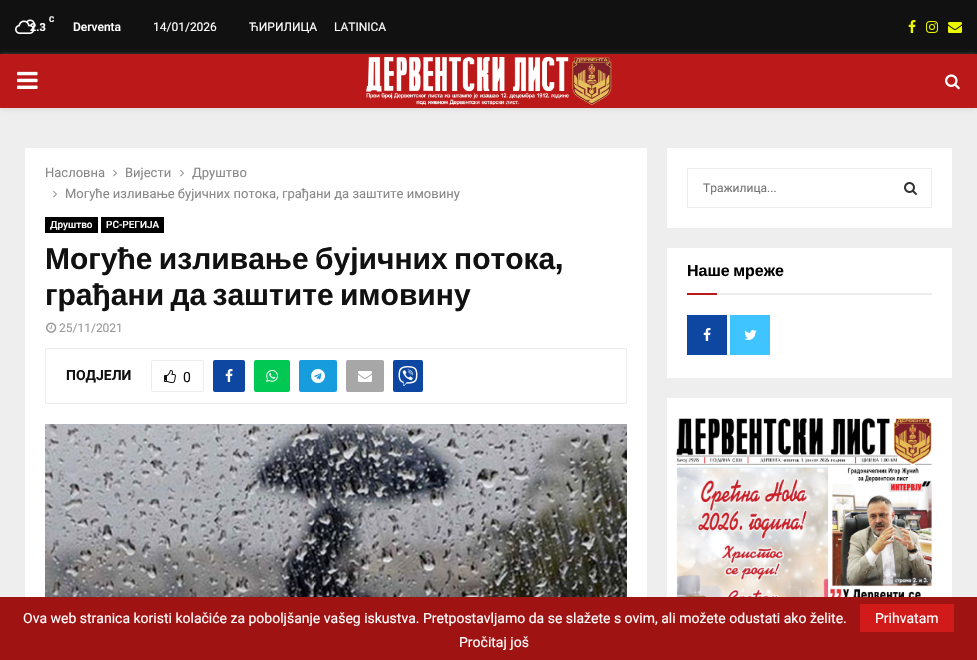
void draw(SkCanvas* canvas) {
	SkPaint fill;
	fill.setAntiAlias(true);
	auto makeFont = [&](const char* family, int weight, float size, bool italic = false) {
		SkFontStyle style(weight, SkFontStyle::kNormal_Width,
			italic ? SkFontStyle::kItalic_Slant : SkFontStyle::kUpright_Slant);
		SkFont result(fontMgr->matchFamilyStyle(family, style), size);
		result.setSubpixel(true);
		return result;
	};
	auto text = [&](const char* s, float x, float y, const SkFont& font) {
		canvas->drawString(s, x, y, font, fill);
	};
	auto spacedText = [&](const char* s, float x, float y, const SkFont& font, const SkPaint& ink, float letter, float word) {
		std::vector<SkGlyphID> glyphs(font.countText(s, strlen(s), SkTextEncoding::kUTF8));
		std::vector<float> xs(glyphs.size());
		font.textToGlyphs(s, strlen(s), SkTextEncoding::kUTF8, glyphs);
		font.getXPos(glyphs, xs, x);
		float extra = 0;
		for (size_t i = 0; i < glyphs.size(); i++) {
			xs[i] += extra;
			extra += letter + word * (glyphs[i] == font.unicharToGlyph(' '));
		}
		canvas->drawTextBlob(SkTextBlob::MakeFromPosHGlyphs(glyphs, xs, y, font), 0, 0, ink);
	};
	auto box = [&](float l, float t, float r, float b) {
		canvas->drawRect(SkRect::MakeLTRB(l, t, r, b), fill);
	};
	auto roundBox = [&](float l, float t, float r, float b, float radius) {
		canvas->drawRoundRect(SkRect::MakeLTRB(l, t, r, b), radius, radius, fill);
	};
	auto picture = [&](const char* path, float l, float t, float r, float b) {
		auto image = SkImages::DeferredFromEncodedData(SkData::MakeFromFileName(path));
		canvas->drawImageRect(image, SkRect::MakeLTRB(l, t, r, b), SkSamplingOptions());
	};
	canvas->clear(0xFFEEEEEE);
	fill.setColor(0xFF111111);
	box(0, 0, 977, 54);
	picture("image0.png", 15, 19, 35, 34);
	picture("image1.png", 908, 20, 916, 33);
	picture("image2.png", 926, 21, 938, 33);
	picture("image3.png", 948, 22, 962, 33);
	fill.setColor(0x75BEBEBE);
	fill.setMaskFilter(SkMaskFilter::MakeBlur(kNormal_SkBlurStyle, 2.5f));
	canvas->drawRect(SkRect::MakeLTRB(0, 55, 977, 109), fill);
	fill.setMaskFilter(nullptr);
	fill.setColor(0xFFBB1919);
	box(0, 54, 977, 108);
	picture("image4.png", 17, 71, 38, 89);
	picture("image5.png", 366, 57, 612, 105);
	picture("image6.png", 945, 74, 960, 90);
	fill.setColor(0xFFFFFFFF);
	box(25, 148, 647, 597);
	picture("image7.png", 113, 169, 117, 177);
	picture("image7.png", 180, 169, 184, 177);
	picture("image7.png", 53, 190, 57, 198);
	fill.setColor(0xFF000000);
	box(45, 217, 98, 233);
	box(101, 217, 164, 233);
	picture("image8.png", 46, 322, 57, 333);
	fill.setStyle(SkPaint::kStroke_Style);
	fill.setStrokeWidth(1);
	fill.setColor(0xFFECECEC);
	canvas->drawRect(SkRect::MakeLTRB(45.5f, 348.5f, 626.5f, 403.5f), fill);
	canvas->drawRoundRect(SkRect::MakeLTRB(151.5f, 360.5f, 203.5f, 391.5f), 1.5f, 1.5f, fill);
	picture("image9.png", 164, 370, 176, 383);
	fill.setStyle(SkPaint::kFill_Style);
	fill.setColor(0xFF0D47A1);
	roundBox(213, 360, 245, 392, 2);
	picture("image10.png", 225, 369, 233, 382);
	fill.setColor(0xFF00C853);
	roundBox(254, 360, 290, 392, 2);
	picture("image11.png", 266, 370, 278, 382);
	fill.setColor(0xFF179CDE);
	roundBox(299, 360, 337, 392, 2);
	picture("image12.png", 311, 369, 325, 383);
	fill.setColor(0xFFA7A7A7);
	roundBox(346, 360, 384, 392, 2);
	picture("image13.png", 358, 371, 372, 382);
	fill.setColor(0xFF0D47A1);
	roundBox(393, 360, 423, 392, 2);
	picture("image14.png", 398, 366, 418, 386);
	picture("image15.png", 45, 424, 627, 597);
	fill.setColor(0xFFFFFFFF);
	box(667, 148, 952, 228);
	fill.setStyle(SkPaint::kStroke_Style);
	fill.setColor(0xFFECECEC);
	canvas->drawRect(SkRect::MakeLTRB(687.5f, 168.5f, 931.5f, 207.5f), fill);
	picture("image16.png", 904, 182, 917, 195);
	fill.setStyle(SkPaint::kFill_Style);
	fill.setColor(0xFFFFFFFF);
	box(667, 248, 952, 378);
	fill.setColor(0xFFECECEC);
	box(717, 293, 932, 295);
	fill.setColor(0xFFBB1919);
	box(687, 293, 717, 295);
	fill.setColor(0xFF0D47A1);
	box(687, 315, 727, 355);
	picture("image10.png", 703, 328, 711, 341);
	fill.setColor(0xFF40C4FF);
	box(730, 315, 770, 355);
	picture("image17.png", 744, 330, 757, 340);
	picture("image18.png", 667, 398, 952, 597);
	fill.setColor(0xFFA01313);
	box(0, 597, 977, 660);
	fill.setColor(0xFFD11B1B);
	box(860, 604, 954, 632);
	auto font1 = makeFont("Roboto", 700, 8);
	fill.setColor(0xFFFFFFFF);
	text("C", 49, 22, font1);
	auto font2 = makeFont("Roboto", 700, 11);
	text("2.3", 30, 31, font2);
	auto font3 = makeFont("Roboto", 500, 12);
	text("Derventa", 73, 31, font3);
	auto font4 = makeFont("Roboto", 400, 12);
	text("14/01/2026", 153, 31, font4);
	text("ЋИРИЛИЦА", 249, 31, font4);
	text("LATINICA", 334, 31, font4);
	auto font5 = makeFont("Roboto", 400, 13);
	fill.setColor(0xFF888888);
	text("Насловна", 45, 177, font5);
	text("Вијести", 125, 177, font5);
	text("Друштво", 192, 177, font5);
	text("Могуће изливање бујичних потока, грађани да заштите имовину", 65, 198, font5);
	auto font6 = makeFont("Roboto", 500, 10);
	fill.setColor(0xFFFFFFFF);
	text("Друштво", 50, 228, font6);
	text("РС-РЕГИЈА", 106, 228, font6);
	auto font7 = makeFont("Liberation Sans", 700, 30);
	fill.setColor(0xFF111111);
	spacedText("Могуће изливање бујичних потока", 45, 269, font7, fill, 0, -2);
	auto font8 = makeFont("Chivo", 700, 30);
	text(",", 555, 269, font8);
	spacedText("грађани да заштите имовину", 45, 305, font7, fill, 0, -2);
	fill.setColor(0xFF999999);
	text("25/11/2021", 59, 332, font4);
	auto font9 = makeFont("Roboto", 700, 14);
	fill.setColor(0xFF111111);
	text("ПОДЈЕЛИ", 66, 380, font9);
	auto font10 = makeFont("Roboto", 400, 14);
	text("0", 183, 382, font10);
	fill.setColor(0xFF757575);
	text("Тражилица...", 703, 192, font4);
	auto font11 = makeFont("Liberation Sans", 700, 16);
	fill.setColor(0xFF000000);
	spacedText("Наше мреже", 687, 276, font11, fill, 0, -1);
	fill.setColor(0xFFFFFFFF);
	text("Ova web stranica koristi kolačiće za poboljšanje vašeg iskustva. Pretpostavljamo da se slažete s ovim, ali možete odustati ako želite.", 23, 623, font10);
	text("Prihvatam", 875, 623, font10);
	text("Pročitaj još", 459, 647, font10);
}
